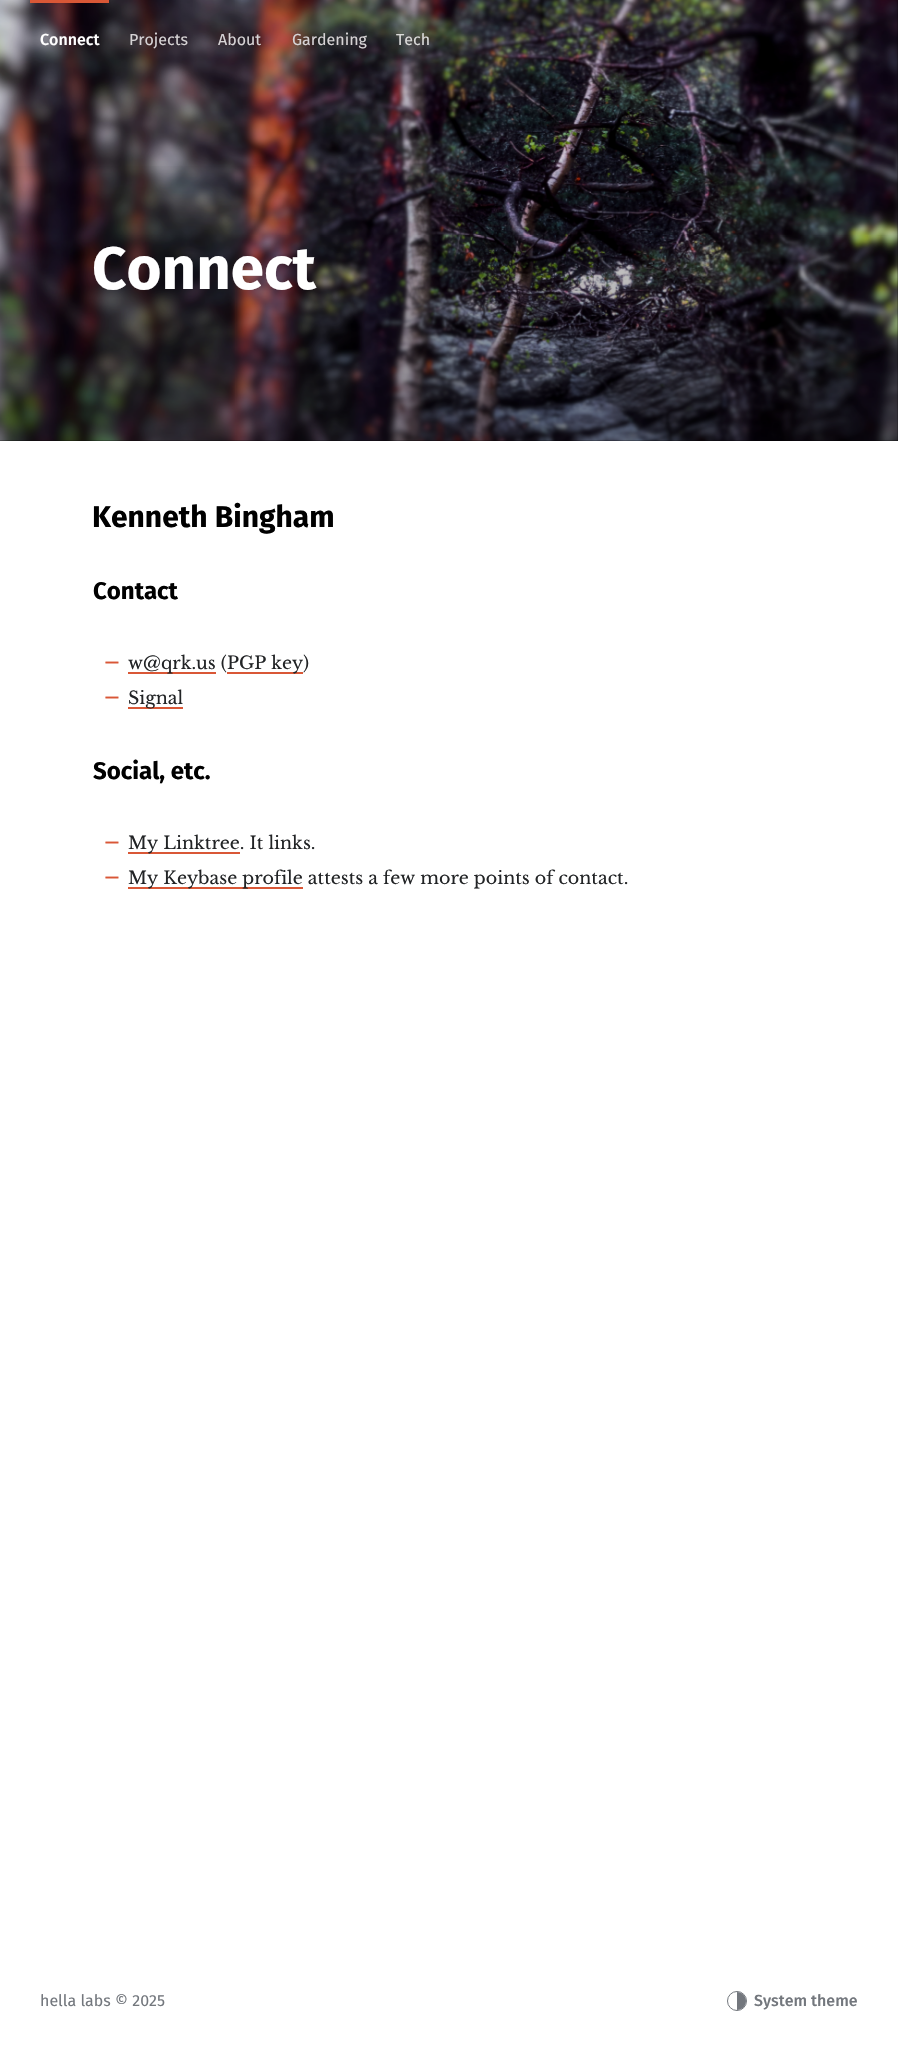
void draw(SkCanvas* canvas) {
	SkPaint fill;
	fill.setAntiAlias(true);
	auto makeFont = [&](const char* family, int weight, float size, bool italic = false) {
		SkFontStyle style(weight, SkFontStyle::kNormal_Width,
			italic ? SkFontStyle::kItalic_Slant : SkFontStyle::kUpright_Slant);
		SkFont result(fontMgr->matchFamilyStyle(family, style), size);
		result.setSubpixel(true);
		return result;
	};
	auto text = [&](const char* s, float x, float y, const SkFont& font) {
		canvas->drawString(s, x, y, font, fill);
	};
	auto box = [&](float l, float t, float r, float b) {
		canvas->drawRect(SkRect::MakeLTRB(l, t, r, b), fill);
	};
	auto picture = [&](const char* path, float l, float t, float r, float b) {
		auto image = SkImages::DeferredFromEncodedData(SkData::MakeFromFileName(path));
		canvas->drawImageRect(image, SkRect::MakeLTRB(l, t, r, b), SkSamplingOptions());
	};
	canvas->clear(0xFFFFFFFF);
	fill.setColor(0xFF000000);
	box(0, 0, 898, 441);
	picture("image0.png", 0, 0, 898, 441);
	fill.setColor(0xFFD95736);
	box(30, 0, 109, 3);
	{
		const SkColor colors[] = {0x00000000, 0x54000000};
		const float stops[] = {0, 1};
		const SkPoint ends[] = {{449, 147}, {449, 441}};
		fill.setShader(SkGradientShader::MakeLinear(ends, colors, stops, 2, SkTileMode::kClamp));
		fill.setAlpha(255);
	}
	box(0, 166, 898, 441);
	fill.setShader(nullptr);
	fill.setColor(0xFFD95736);
	box(128, 672, 216, 674);
	box(227, 672, 303, 674);
	box(128, 707, 183, 709);
	box(128, 852, 240, 854);
	box(128, 887, 303, 889);
	fill.setStyle(SkPaint::kStroke_Style);
	fill.setStrokeWidth(1);
	fill.setColor(0xFF73777D);
	canvas->drawCircle(737, 2001, 9.5f, fill);
	fill.setStyle(SkPaint::kFill_Style);
	canvas->drawPath(SkPathBuilder().moveTo(737, 1992).cubicTo(742, 1992, 746, 1996, 746, 2001).cubicTo(746, 2006, 742, 2010, 737, 2010).close().detach(), fill);
	auto font1 = makeFont("Fira Sans", 500, 16);
	fill.setColor(0xFFFFFFFF);
	text("Connect", 40, 45, font1);
	auto font2 = makeFont("Fira Sans", 400, 16);
	fill.setColor(0xFFD6D3D5);
	text("Projects", 129, 45, font2);
	text("About", 218, 45, font2);
	text("Gardening", 292, 45, font2);
	fill.setColor(0xFFDADAD9);
	text("Tech", 396, 45, font2);
	auto font3 = makeFont("Fira Sans", 700, 60);
	fill.setColor(0xFFFFFFFF);
	text("Connect", 92, 289, font3);
	auto font4 = makeFont("Fira Sans", 700, 30);
	fill.setColor(0xFF000000);
	text("Kenneth Bingham", 92, 527, font4);
	auto font5 = makeFont("Fira Sans", 700, 24);
	text("Contact", 93, 599, font5);
	auto font6 = makeFont("Fira Sans", 500, 17.5f);
	fill.setColor(0xFFD95736);
	text("—", 105, 668, font6);
	auto font7 = makeFont("Libre Baskerville", 400, 17.5f);
	fill.setColor(0xFF222426);
	text("w@qrk.us (", 128, 669, font7);
	text("PGP key)", 227, 669, font7);
	fill.setColor(0xFFD95736);
	text("—", 105, 703, font6);
	fill.setColor(0xFF222426);
	text("Signal", 128, 704, font7);
	fill.setColor(0xFF000000);
	text("Social, etc.", 93, 779, font5);
	fill.setColor(0xFFD95736);
	text("—", 105, 848, font6);
	fill.setColor(0xFF222426);
	text("My Linktree. It links.", 128, 849, font7);
	fill.setColor(0xFFD95736);
	text("—", 105, 883, font6);
	fill.setColor(0xFF222426);
	text("My Keybase profile attests a few more points of contact.", 128, 884, font7);
	fill.setColor(0xFF73777D);
	text("hella labs © 2025", 40, 2006, font2);
	text("System theme", 754, 2006, font1);
}
